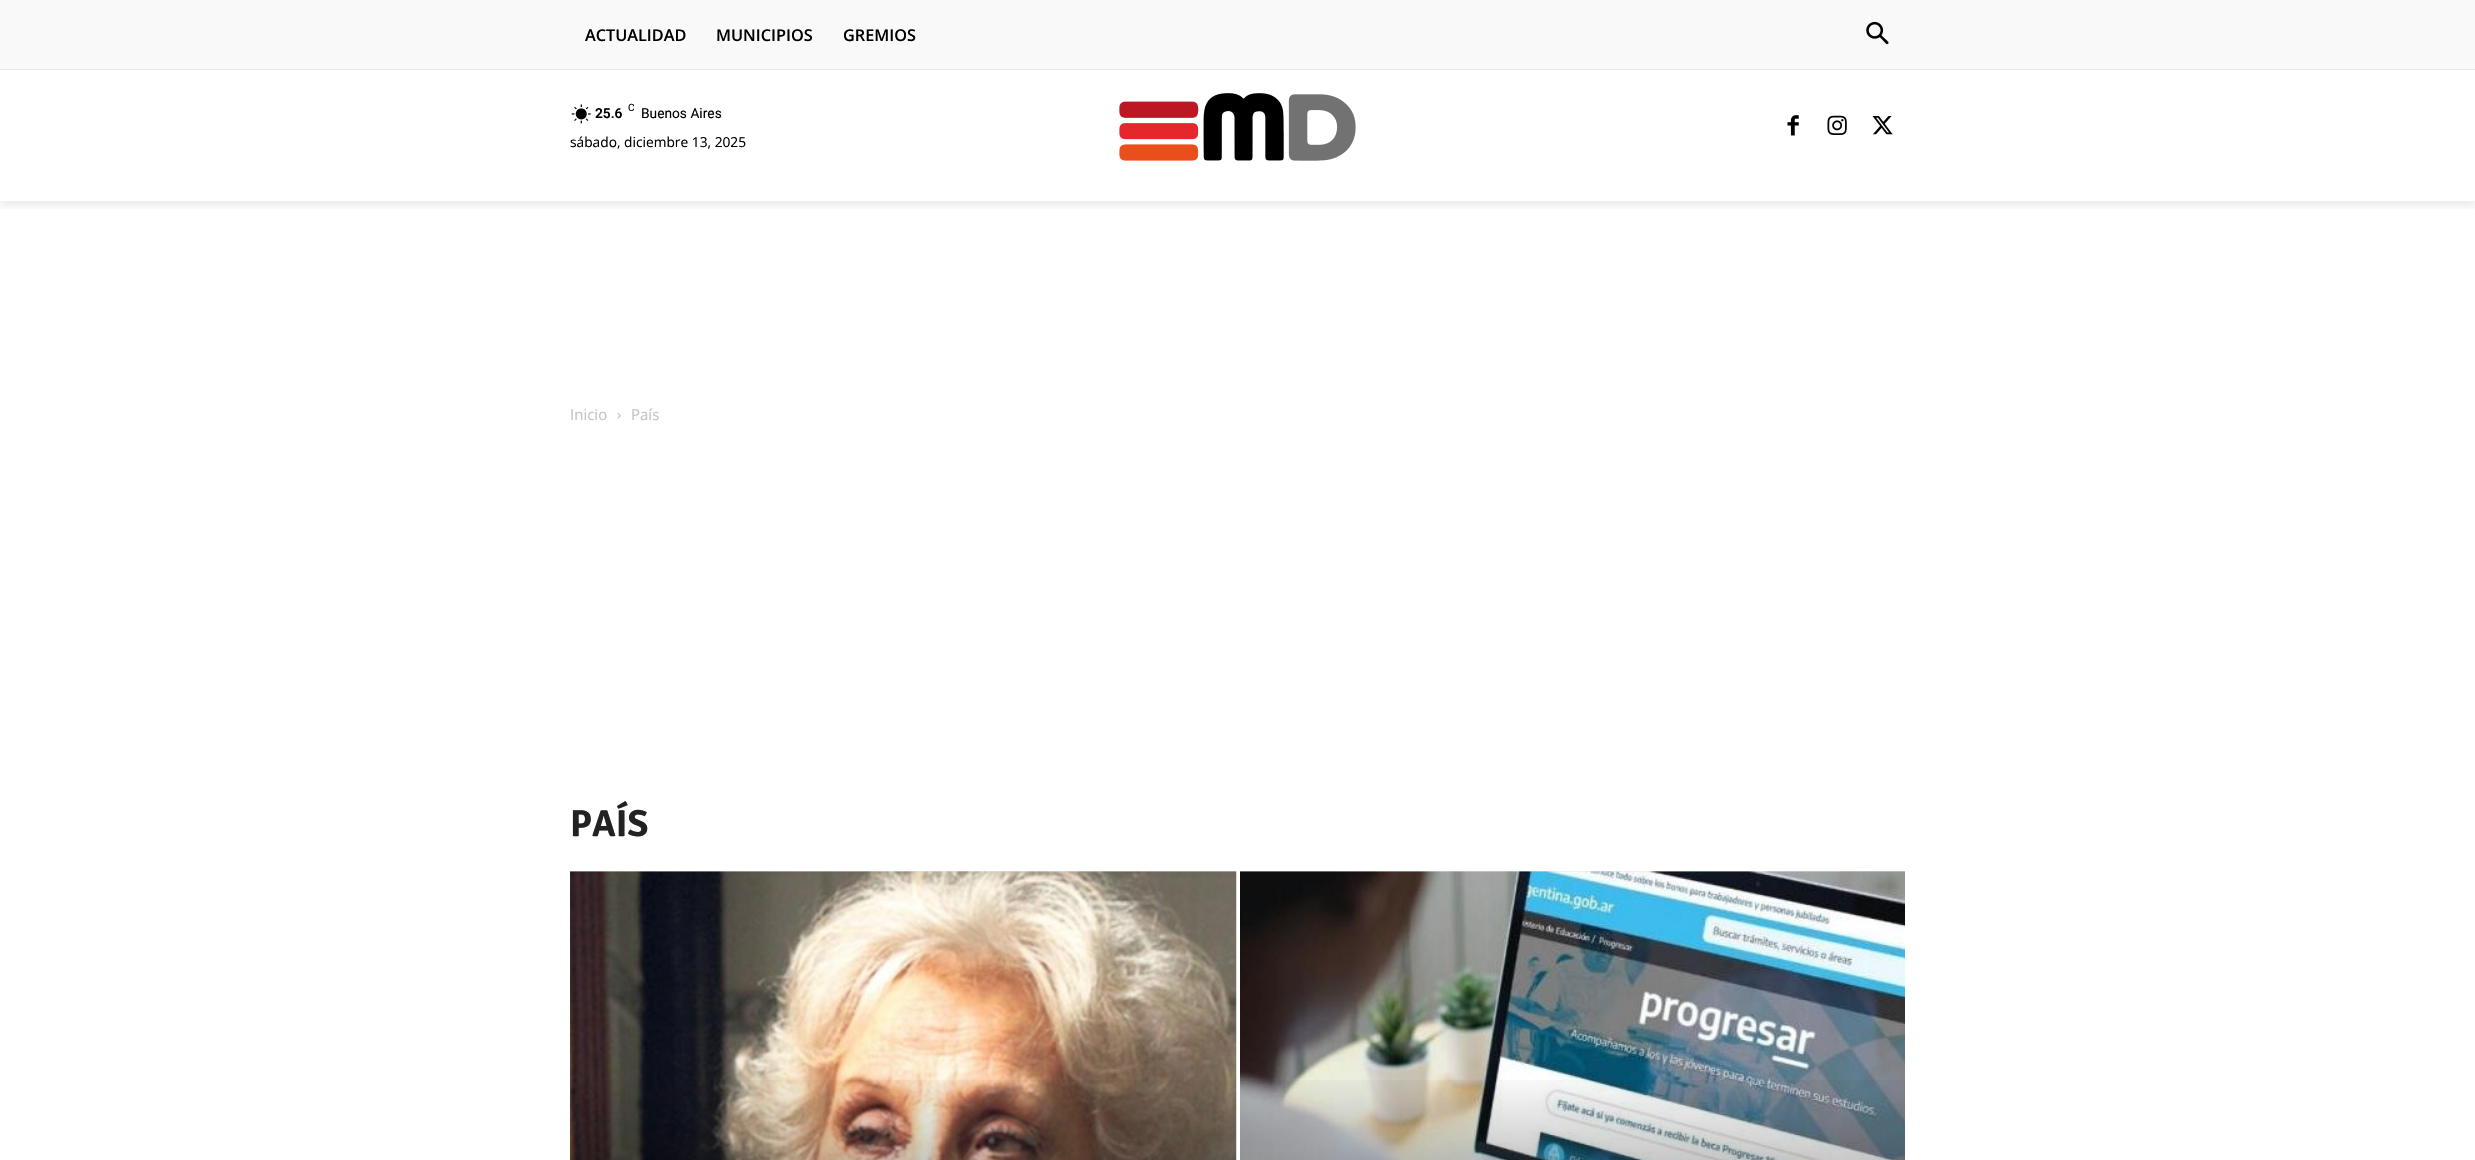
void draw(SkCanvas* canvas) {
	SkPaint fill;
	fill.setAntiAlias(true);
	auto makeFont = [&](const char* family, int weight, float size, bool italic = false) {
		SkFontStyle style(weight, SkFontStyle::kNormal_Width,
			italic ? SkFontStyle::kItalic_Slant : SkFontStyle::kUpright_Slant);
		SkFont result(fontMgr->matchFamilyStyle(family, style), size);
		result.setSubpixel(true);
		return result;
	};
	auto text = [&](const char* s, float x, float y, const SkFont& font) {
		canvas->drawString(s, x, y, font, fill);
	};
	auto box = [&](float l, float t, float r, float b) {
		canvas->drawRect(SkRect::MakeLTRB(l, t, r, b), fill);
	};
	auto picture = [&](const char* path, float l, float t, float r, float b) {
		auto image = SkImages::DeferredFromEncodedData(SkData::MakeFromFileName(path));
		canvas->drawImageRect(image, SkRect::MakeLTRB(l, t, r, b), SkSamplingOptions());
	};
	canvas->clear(0xFFFFFFFF);
	picture("image1.png", 571, 104, 591, 124);
	picture("image2.png", 1119, 93, 1356, 161);
	picture("image3.png", 1787, 115, 1799, 136);
	picture("image4.png", 1827, 115, 1847, 135);
	picture("image5.png", 1872, 116, 1893, 135);
	canvas->save();
	canvas->clipRect(SkRect::MakeLTRB(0, 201, 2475, 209));
	fill.setColor(0x14000000);
	fill.setMaskFilter(SkMaskFilter::MakeBlur(kNormal_SkBlurStyle, 4));
	canvas->drawRect(SkRect::MakeLTRB(0, 75, 2475, 206), fill);
	fill.setMaskFilter(nullptr);
	canvas->restore();
	fill.setColor(0xFFF9F9F9);
	box(0, 0, 2475, 69);
	fill.setColor(0xFFEBEBEB);
	box(0, 69, 2475, 70);
	picture("image0.png", 1866, 21, 1889, 45);
	picture("image6.png", 617, 413, 621, 419);
	fill.setColor(0xFFE5E5E5);
	box(570, 871, 1236, 872);
	picture("image7.png", 570, 871, 1237, 1160);
	{
		const SkColor colors[] = {0x00000000, 0xB3000000};
		const float stops[] = {0.4f, 1};
		const SkPoint ends[] = {{903, 871}, {903, 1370}};
		fill.setShader(SkGradientShader::MakeLinear(ends, colors, stops, 2, SkTileMode::kClamp));
		fill.setAlpha(255);
	}
	box(570, 1080, 1236, 1160);
	fill.setShader(nullptr);
	fill.setColor(0xFFE5E5E5);
	box(1240, 871, 1905, 872);
	picture("image8.png", 1240, 871, 1905, 1160);
	{
		const SkColor colors[] = {0x00000000, 0xB3000000};
		const float stops[] = {0.4f, 1};
		const SkPoint ends[] = {{1573, 871}, {1573, 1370}};
		fill.setShader(SkGradientShader::MakeLinear(ends, colors, stops, 2, SkTileMode::kClamp));
		fill.setAlpha(255);
	}
	box(1240, 1080, 1905, 1160);
	auto font1 = makeFont("Open Sans", 600, 16.25f);
	fill.setShader(nullptr);
	fill.setColor(0xFF000000);
	text("ACTUALIDAD", 585, 41, font1);
	text("MUNICIPIOS", 716, 41, font1);
	text("GREMIOS", 843, 41, font1);
	auto font2 = makeFont("Roboto", 600, 13.75f);
	text("25.6", 595, 118, font2);
	auto font3 = makeFont("Roboto", 400, 10);
	text("C", 628, 111, font3);
	auto font4 = makeFont("Roboto", 400, 13.75f);
	text("Buenos Aires", 641, 118, font4);
	auto font5 = makeFont("Open Sans", 400, 13.75f);
	text("sábado, diciembre 13, 2025", 570, 147, font5);
	auto font6 = makeFont("Open Sans", 400, 15);
	fill.setColor(0xFFC3C3C3);
	text("Inicio", 570, 420, font6);
	text("País", 631, 420, font6);
	auto font7 = makeFont("Signika Negative", 700, 37.5f);
	fill.setColor(0xFF222222);
	text("PAÍS", 570, 836, font7);
}
